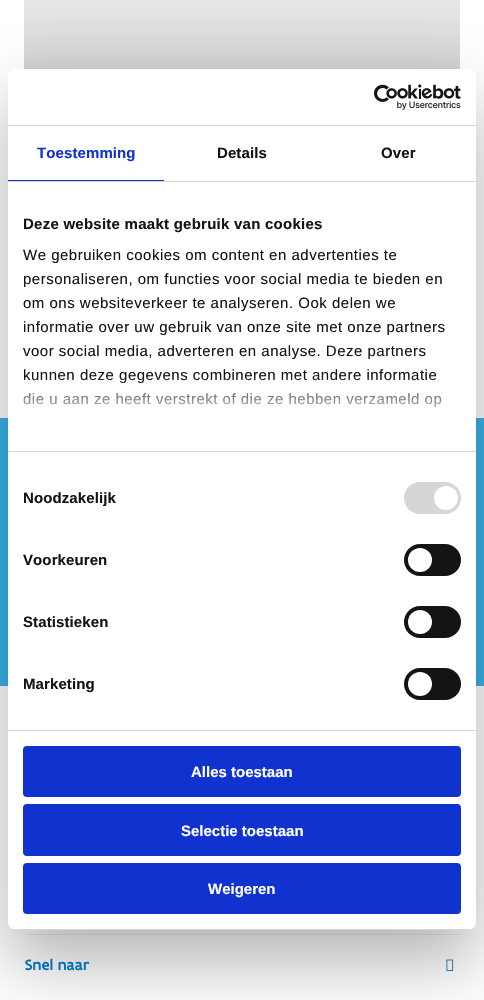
void draw(SkCanvas* canvas) {
	SkPaint fill;
	fill.setAntiAlias(true);
	auto makeFont = [&](const char* family, int weight, float size, bool italic = false) {
		SkFontStyle style(weight, SkFontStyle::kNormal_Width,
			italic ? SkFontStyle::kItalic_Slant : SkFontStyle::kUpright_Slant);
		SkFont result(fontMgr->matchFamilyStyle(family, style), size);
		result.setSubpixel(true);
		return result;
	};
	auto text = [&](const char* s, float x, float y, const SkFont& font) {
		canvas->drawString(s, x, y, font, fill);
	};
	auto spacedText = [&](const char* s, float x, float y, const SkFont& font, const SkPaint& ink, float letter, float word) {
		std::vector<SkGlyphID> glyphs(font.countText(s, strlen(s), SkTextEncoding::kUTF8));
		std::vector<float> xs(glyphs.size());
		font.textToGlyphs(s, strlen(s), SkTextEncoding::kUTF8, glyphs);
		font.getXPos(glyphs, xs, x);
		float extra = 0;
		for (size_t i = 0; i < glyphs.size(); i++) {
			xs[i] += extra;
			extra += letter + word * (glyphs[i] == font.unicharToGlyph(' '));
		}
		canvas->drawTextBlob(SkTextBlob::MakeFromPosHGlyphs(glyphs, xs, y, font), 0, 0, ink);
	};
	auto box = [&](float l, float t, float r, float b) {
		canvas->drawRect(SkRect::MakeLTRB(l, t, r, b), fill);
	};
	auto roundBox = [&](float l, float t, float r, float b, float radius) {
		canvas->drawRoundRect(SkRect::MakeLTRB(l, t, r, b), radius, radius, fill);
	};
	auto picture = [&](const char* path, float l, float t, float r, float b) {
		auto image = SkImages::DeferredFromEncodedData(SkData::MakeFromFileName(path));
		canvas->drawImageRect(image, SkRect::MakeLTRB(l, t, r, b), SkSamplingOptions());
	};
	canvas->clear(0xFFFFFFFF);
	{
		const SkColor colors[] = {0xFFAFAFAF, 0xFFFFFFFF};
		const float stops[] = {0.37f, 1};
		const SkPoint ends[] = {{242, 326}, {242, -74}};
		fill.setShader(SkGradientShader::MakeLinear(ends, colors, stops, 2, SkTileMode::kClamp));
		fill.setAlpha(255);
	}
	box(24, 0, 460, 69);
	fill.setShader(nullptr);
	fill.setColor(0xFF38B3E8);
	box(0, 418, 484, 686);
	fill.setColor(0xFFE6F1F8);
	box(25, 934, 459, 935);
	picture("image1.png", 446, 959, 454, 971);
	fill.setColor(0x4D000000);
	fill.setMaskFilter(SkMaskFilter::MakeBlur(kNormal_SkBlurStyle, 34));
	canvas->drawRoundRect(SkRect::MakeLTRB(8, 101, 476, 962), 8, 8, fill);
	fill.setMaskFilter(nullptr);
	fill.setColor(0xFFFFFFFF);
	roundBox(8, 69, 476, 930, 8);
	fill.setColor(0xFFD6D6D6);
	box(8, 125, 476, 126);
	picture("image0.png", 374, 84, 461, 110);
	box(8, 181, 476, 182);
	fill.setColor(0xFF1032CF);
	box(8, 180, 164, 181);
	fill.setColor(0xFFD6D6D6);
	box(8, 451, 476, 452);
	box(8, 730, 476, 731);
	roundBox(404, 482, 461, 514, 16);
	fill.setColor(0xFFFFFFFF);
	canvas->drawCircle(446, 498, 12, fill);
	fill.setColor(0xFF141414);
	roundBox(404, 544, 461, 576, 16);
	fill.setColor(0xFFFFFFFF);
	canvas->drawCircle(420, 560, 12, fill);
	fill.setColor(0xFF141414);
	roundBox(404, 606, 461, 638, 16);
	fill.setColor(0xFFFFFFFF);
	canvas->drawCircle(420, 622, 12, fill);
	fill.setColor(0xFF141414);
	roundBox(404, 668, 461, 700, 16);
	fill.setColor(0xFFFFFFFF);
	canvas->drawCircle(420, 684, 12, fill);
	canvas->save();
	canvas->clipPath(SkPathBuilder().moveTo(16, 69).lineTo(468, 69).cubicTo(472.5f, 69, 476, 72.5f, 476, 77).lineTo(476, 922).cubicTo(476, 926.5f, 472.5f, 930, 468, 930).lineTo(16, 930).cubicTo(11.5f, 930, 8, 926.5f, 8, 922).lineTo(8, 77).cubicTo(8, 72.5f, 11.5f, 69, 16, 69).close().detach(), true);
	fill.setColor(0xFFD6D6D6);
	box(8, 929, 476, 930);
	canvas->restore();
	fill.setColor(0xFF1032CF);
	canvas->drawRoundRect(SkRect::MakeLTRB(24, 747, 460, 796), 3, 3, fill);
	fill.setStyle(SkPaint::kStroke_Style);
	fill.setStrokeWidth(2);
	canvas->drawRoundRect(SkRect::MakeLTRB(24, 747, 460, 796), 3, 3, fill);
	fill.setStyle(SkPaint::kFill_Style);
	canvas->drawRoundRect(SkRect::MakeLTRB(24, 805, 460, 855), 3, 3, fill);
	fill.setStyle(SkPaint::kStroke_Style);
	canvas->drawRoundRect(SkRect::MakeLTRB(24, 805, 460, 855), 3, 3, fill);
	fill.setStyle(SkPaint::kFill_Style);
	canvas->drawRoundRect(SkRect::MakeLTRB(24, 864, 460, 913), 3, 3, fill);
	fill.setStyle(SkPaint::kStroke_Style);
	canvas->drawRoundRect(SkRect::MakeLTRB(24, 864, 460, 913), 3, 3, fill);
	auto font1 = makeFont("Liberation Sans", 700, 15);
	fill.setStyle(SkPaint::kFill_Style);
	spacedText("Toestemming", 37, 158, font1, fill, 0.1f, 0);
	fill.setColor(0xFF141414);
	spacedText("Details", 217, 158, font1, fill, 0.1f, 0);
	spacedText("Over", 381, 158, font1, fill, 0.1f, 0);
	spacedText("Deze website maakt gebruik van cookies", 23, 229, font1, fill, 0.25f, 0);
	auto font2 = makeFont("Liberation Sans", 400, 15);
	spacedText("We gebruiken cookies om content en advertenties te", 23, 260, font2, fill, 0.5f, 0);
	spacedText("personaliseren, om functies voor social media te bieden en", 23, 284, font2, fill, 0.5f, 0);
	spacedText("om ons websiteverkeer te analyseren. Ook delen we", 23, 308, font2, fill, 0.5f, 0);
	spacedText("informatie over uw gebruik van onze site met onze partners", 23, 332, font2, fill, 0.5f, 0);
	spacedText("voor social media, adverteren en analyse. Deze partners", 23, 356, font2, fill, 0.5f, 0);
	spacedText("kunnen deze gegevens combineren met andere informatie", 23, 380, font2, fill, 0.5f, 0);
	spacedText("die u aan ze heeft verstrekt of die ze hebben verzameld op", 23, 404, font2, fill, 0.5f, 0);
	{
		const SkColor colors[] = {0xFFFFFFFF, 0xCCFFFFFF, 0x00FFFFFF};
		const float stops[] = {0, 0.5f, 1};
		const SkPoint ends[] = {{236, 451}, {236, 376}};
		fill.setShader(SkGradientShader::MakeLinear(ends, colors, stops, 3, SkTileMode::kClamp));
		fill.setAlpha(255);
	}
	box(23, 377, 442, 408);
	fill.setShader(nullptr);
	fill.setColor(0xFF141414);
	spacedText("Noodzakelijk", 23, 503, font1, fill, 0.1f, 0);
	spacedText("Voorkeuren", 23, 565, font1, fill, 0.1f, 0);
	spacedText("Statistieken", 23, 627, font1, fill, 0.1f, 0);
	spacedText("Marketing", 23, 689, font1, fill, 0.1f, 0);
	fill.setColor(0xFFFFFFFF);
	text("Alles toestaan", 191, 777, font1);
	text("Selectie toestaan", 181, 836, font1);
	text("Weigeren", 208, 894, font1);
	auto font3 = makeFont("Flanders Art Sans", 500, 16);
	fill.setColor(0xFF006FB7);
	text("Snel naar", 25, 970, font3);
}
